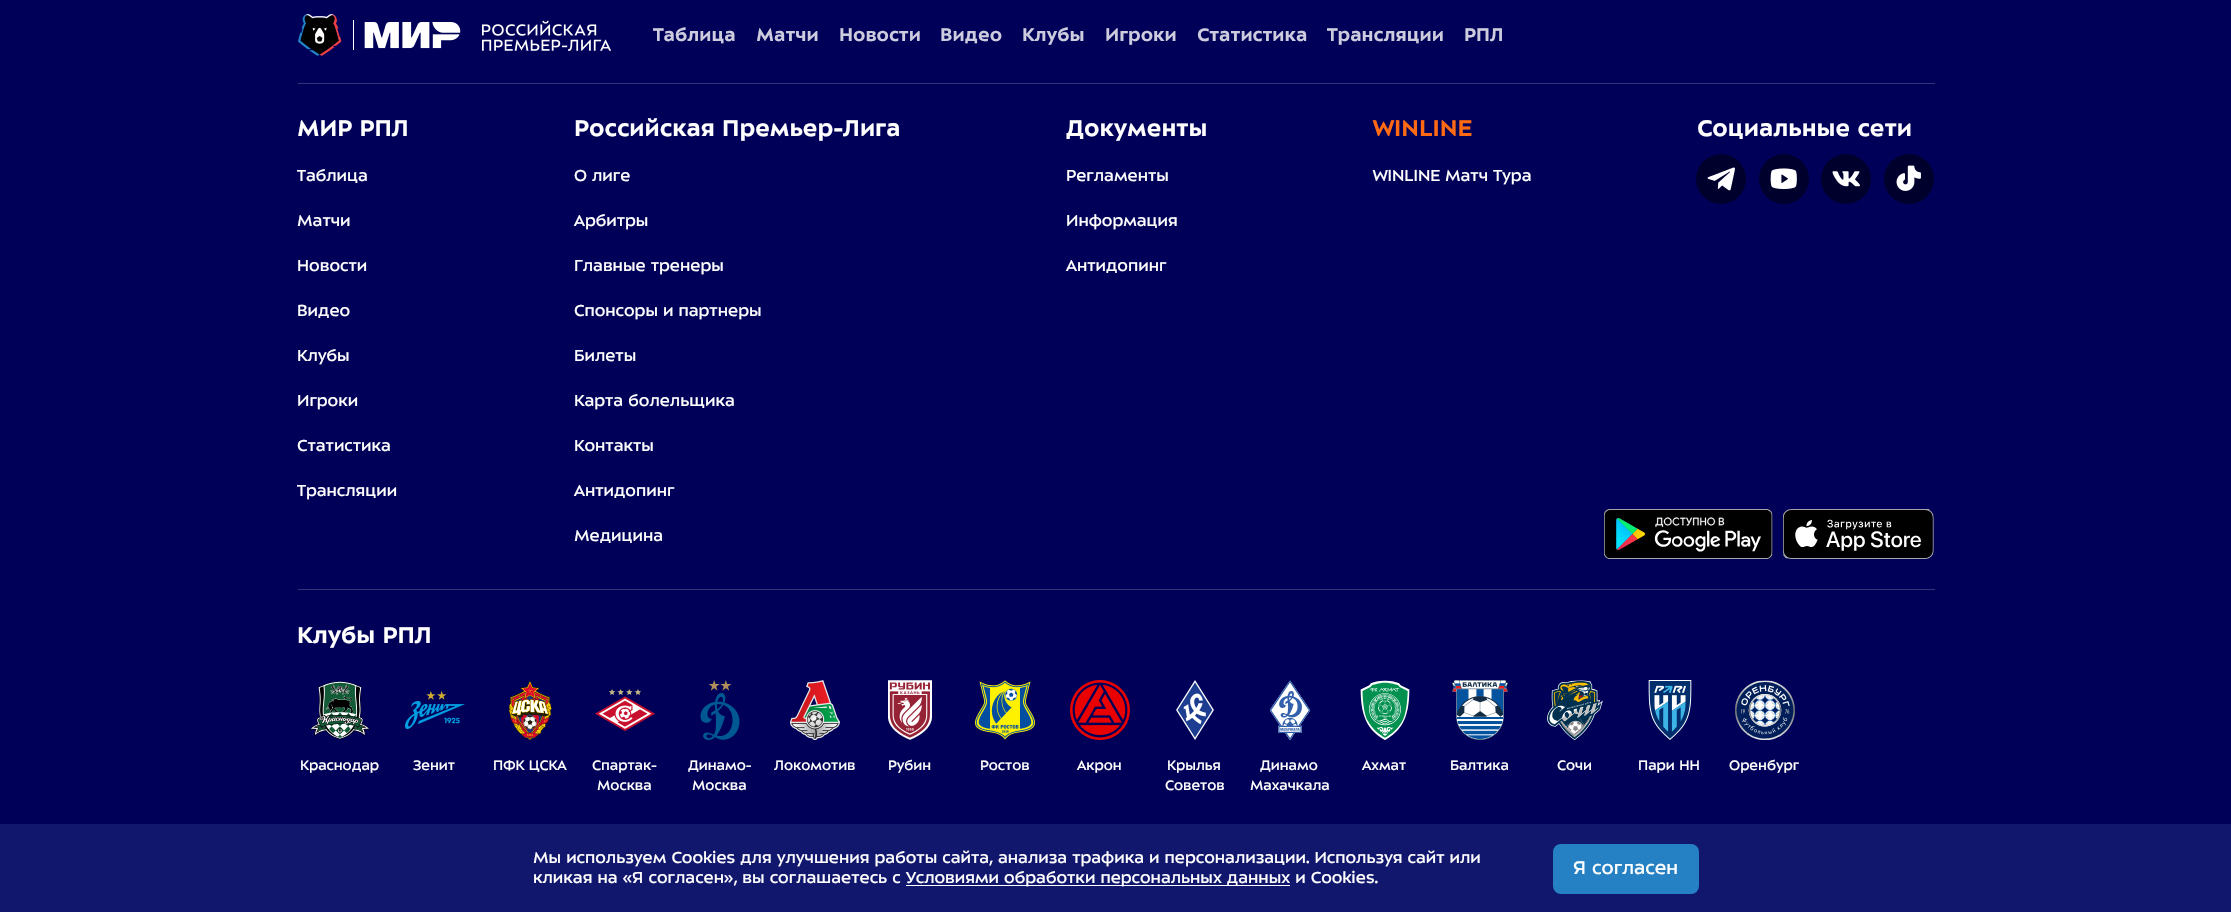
void draw(SkCanvas* canvas) {
	SkPaint fill;
	fill.setAntiAlias(true);
	auto makeFont = [&](const char* family, int weight, float size, bool italic = false) {
		SkFontStyle style(weight, SkFontStyle::kNormal_Width,
			italic ? SkFontStyle::kItalic_Slant : SkFontStyle::kUpright_Slant);
		SkFont result(fontMgr->matchFamilyStyle(family, style), size);
		result.setSubpixel(true);
		return result;
	};
	auto text = [&](const char* s, float x, float y, const SkFont& font) {
		canvas->drawString(s, x, y, font, fill);
	};
	auto box = [&](float l, float t, float r, float b) {
		canvas->drawRect(SkRect::MakeLTRB(l, t, r, b), fill);
	};
	auto roundBox = [&](float l, float t, float r, float b, float radius) {
		canvas->drawRoundRect(SkRect::MakeLTRB(l, t, r, b), radius, radius, fill);
	};
	auto picture = [&](const char* path, float l, float t, float r, float b) {
		auto image = SkImages::DeferredFromEncodedData(SkData::MakeFromFileName(path));
		canvas->drawImageRect(image, SkRect::MakeLTRB(l, t, r, b), SkSamplingOptions());
	};
	canvas->clear(0xFF000058);
	picture("image0.png", 298, 14, 342, 56);
	fill.setColor(0xFFFFFFFF);
	box(353, 20, 354, 50);
	picture("image1.png", 364, 22, 461, 49);
	picture("image2.png", 482, 20, 611, 51);
	fill.setColor(0xFF333379);
	box(298, 83, 1935, 84);
	box(298, 589, 1935, 590);
	fill.setColor(0xFF00002C);
	canvas->drawCircle(1721, 179, 25, fill);
	picture("image3.png", 1707, 167, 1735, 191);
	canvas->drawCircle(1784, 179, 25, fill);
	picture("image4.png", 1770, 168, 1797, 190);
	canvas->drawCircle(1846, 179, 25, fill);
	picture("image5.png", 1832, 171, 1860, 187);
	canvas->drawCircle(1909, 179, 25, fill);
	picture("image6.png", 1896, 165, 1921, 191);
	picture("image7.png", 1604, 509, 1773, 559);
	picture("image8.png", 1783, 509, 1934, 559);
	picture("image9.png", 310, 681, 370, 739);
	picture("image10.png", 405, 691, 465, 729);
	picture("image11.png", 508, 680, 552, 740);
	picture("image12.png", 595, 689, 655, 731);
	picture("image13.png", 700, 680, 740, 740);
	picture("image14.png", 790, 680, 840, 740);
	picture("image15.png", 888, 680, 932, 740);
	picture("image16.png", 975, 680, 1035, 740);
	picture("image17.png", 1070, 680, 1130, 740);
	picture("image18.png", 1176, 680, 1214, 740);
	picture("image19.png", 1269, 680, 1311, 740);
	picture("image20.png", 1360, 680, 1410, 740);
	picture("image21.png", 1452, 680, 1508, 740);
	picture("image22.png", 1547, 680, 1603, 740);
	picture("image23.png", 1648, 680, 1692, 740);
	picture("image24.png", 1735, 680, 1795, 740);
	fill.setColor(0xFF11176D);
	box(0, 824, 2231, 912);
	fill.setColor(0xFFFFFFFF);
	box(906, 885, 1290, 886);
	fill.setColor(0xFF2581C4);
	roundBox(1553, 844, 1699, 894, 8);
	auto font1 = makeFont("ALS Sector", 700, 20);
	fill.setColor(0xFFCCCCDE);
	text("Таблица", 653, 41, font1);
	text("Матчи", 756, 41, font1);
	text("Новости", 839, 41, font1);
	text("Видео", 940, 41, font1);
	text("Клубы", 1022, 41, font1);
	text("Игроки", 1105, 41, font1);
	text("Статистика", 1197, 41, font1);
	text("Трансляции", 1327, 41, font1);
	text("РПЛ", 1464, 41, font1);
	auto font2 = makeFont("ALS Sector", 700, 25);
	fill.setColor(0xFFFFFFFF);
	text("МИР РПЛ", 297, 136, font2);
	auto font3 = makeFont("ALS Sector", 400, 17.5f);
	text("Таблица", 297, 181, font3);
	text("Матчи", 297, 226, font3);
	text("Новости", 297, 271, font3);
	text("Видео", 297, 316, font3);
	text("Клубы", 297, 361, font3);
	text("Игроки", 297, 406, font3);
	text("Статистика", 297, 451, font3);
	text("Трансляции", 297, 496, font3);
	text("Российская Премьер-Лига", 574, 136, font2);
	text("О лиге", 574, 181, font3);
	text("Арбитры", 574, 226, font3);
	text("Главные тренеры", 574, 271, font3);
	text("Спонсоры и партнеры", 574, 316, font3);
	text("Билеты", 574, 361, font3);
	text("Карта болельщика", 574, 406, font3);
	text("Контакты", 574, 451, font3);
	text("Антидопинг", 574, 496, font3);
	text("Медицина", 574, 541, font3);
	text("Документы", 1066, 136, font2);
	text("Регламенты", 1066, 181, font3);
	text("Информация", 1066, 226, font3);
	text("Антидопинг", 1066, 271, font3);
	fill.setColor(0xFFFF6A13);
	text("WINLINE", 1373, 136, font2);
	fill.setColor(0xFFFFFFFF);
	text("WINLINE Матч Тура", 1373, 181, font3);
	text("Социальные сети", 1697, 136, font2);
	text("Клубы РПЛ", 297, 643, font2);
	auto font4 = makeFont("ALS Sector", 400, 15);
	text("Краснодар", 300, 770, font4);
	text("Зенит", 413, 770, font4);
	text("ПФК ЦСКА", 493, 770, font4);
	text("Спартак-", 592, 770, font4);
	text("Москва", 597, 790, font4);
	text("Динамо-", 688, 770, font4);
	text("Москва", 692, 790, font4);
	text("Локомотив", 774, 770, font4);
	text("Рубин", 888, 770, font4);
	text("Ростов", 980, 770, font4);
	text("Акрон", 1077, 770, font4);
	text("Крылья", 1167, 770, font4);
	text("Советов", 1165, 790, font4);
	text("Динамо", 1260, 770, font4);
	text("Махачкала", 1250, 790, font4);
	text("Ахмат", 1362, 770, font4);
	text("Балтика", 1450, 770, font4);
	text("Сочи", 1557, 770, font4);
	text("Пари НН", 1638, 770, font4);
	text("Оренбург", 1729, 770, font4);
	text("Мы используем Cookies для улучшения работы сайта, анализа трафика и персонализации. Используя сайт или", 533, 863, font3);
	text("кликая на «Я согласен», вы соглашаетесь с", 533, 883, font3);
	text("Условиями обработки персональных данных и Cookies.", 906, 883, font3);
	auto font5 = makeFont("ALS Sector", 400, 20);
	text("Я согласен", 1573, 874, font5);
}
